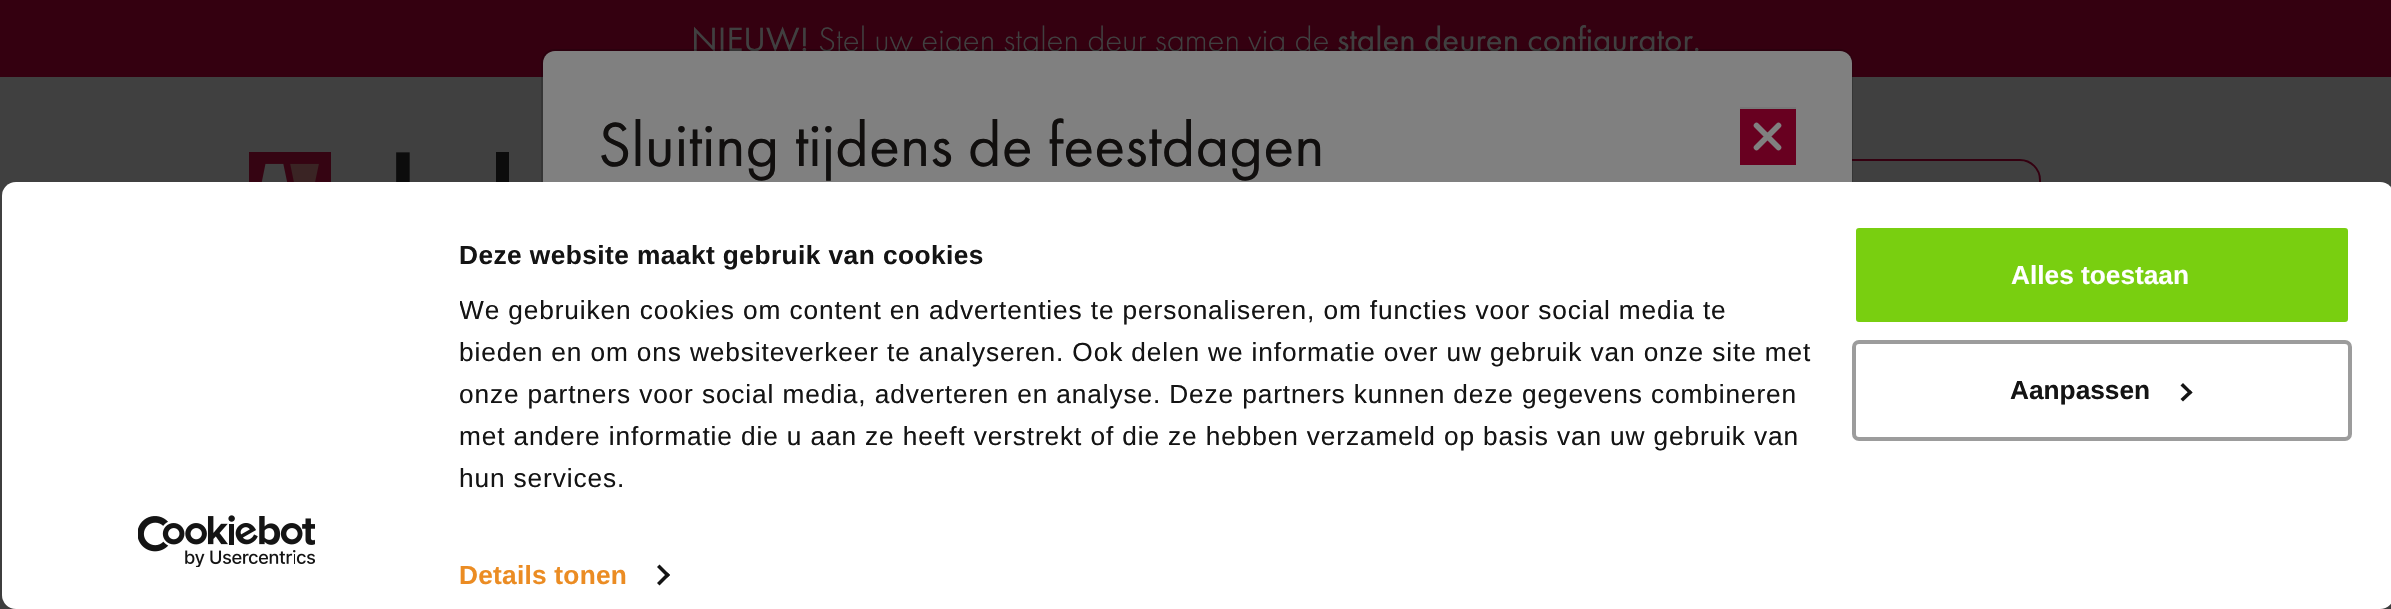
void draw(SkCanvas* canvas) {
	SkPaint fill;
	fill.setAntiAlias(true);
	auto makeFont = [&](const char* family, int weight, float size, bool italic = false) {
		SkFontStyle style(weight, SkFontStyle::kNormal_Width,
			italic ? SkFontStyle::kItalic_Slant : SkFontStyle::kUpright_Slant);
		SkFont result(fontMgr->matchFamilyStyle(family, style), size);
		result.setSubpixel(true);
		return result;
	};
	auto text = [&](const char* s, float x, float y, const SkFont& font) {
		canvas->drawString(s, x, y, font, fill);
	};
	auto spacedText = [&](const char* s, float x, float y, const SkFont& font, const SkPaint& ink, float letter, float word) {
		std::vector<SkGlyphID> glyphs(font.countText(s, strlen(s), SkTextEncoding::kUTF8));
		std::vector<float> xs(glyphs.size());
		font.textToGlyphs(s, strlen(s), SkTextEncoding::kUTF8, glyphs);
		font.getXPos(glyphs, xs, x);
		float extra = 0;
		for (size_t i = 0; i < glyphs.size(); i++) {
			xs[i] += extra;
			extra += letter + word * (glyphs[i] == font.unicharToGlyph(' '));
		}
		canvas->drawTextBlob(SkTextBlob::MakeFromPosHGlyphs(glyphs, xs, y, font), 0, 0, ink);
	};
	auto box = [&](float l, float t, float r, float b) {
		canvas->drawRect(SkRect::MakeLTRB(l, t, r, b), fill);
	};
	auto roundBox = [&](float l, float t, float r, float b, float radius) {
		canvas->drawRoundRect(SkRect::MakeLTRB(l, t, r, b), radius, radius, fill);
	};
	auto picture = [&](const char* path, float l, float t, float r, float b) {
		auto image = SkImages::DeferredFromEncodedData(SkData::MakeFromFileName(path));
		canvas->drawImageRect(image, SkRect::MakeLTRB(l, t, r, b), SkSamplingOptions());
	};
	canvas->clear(0xFF3D3D3D);
	fill.setColor(0xFF404040);
	box(0, 77, 2391, 320);
	fill.setColor(0xFF340010);
	box(0, 0, 2391, 77);
	picture("image0.png", 249, 152, 509, 182);
	fill.setStyle(SkPaint::kStroke_Style);
	fill.setStrokeWidth(2);
	canvas->drawRoundRect(SkRect::MakeLTRB(1662, 160, 2040, 239), 20, 20, fill);
	auto font1 = makeFont("Futura PT", 400, 35);
	fill.setStyle(SkPaint::kFill_Style);
	fill.setColor(0xFF404040);
	text("NIEUW!", 691, 51, font1);
	auto font2 = makeFont("Futura PT", 300, 35);
	text("Stel uw eigen stalen deur samen via de", 818, 51, font2);
	text("stalen deuren configurator.", 1337, 51, font1);
	fill.setStyle(SkPaint::kStroke_Style);
	fill.setColor(0x2E000000);
	canvas->drawRoundRect(SkRect::MakeLTRB(542, 50, 1852, 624), 13, 13, fill);
	fill.setStyle(SkPaint::kFill_Style);
	fill.setColor(0xFF808080);
	canvas->drawPath(SkPathBuilder().moveTo(555, 51).lineTo(1840, 51).cubicTo(1846.5f, 51, 1852, 56.5f, 1852, 63).lineTo(1852, 240).lineTo(543, 240).lineTo(543, 63).cubicTo(543, 56.5f, 548.5f, 51, 555, 51).close().detach(), fill);
	auto font3 = makeFont("Futura PT", 400, 64.4f);
	fill.setColor(0xFF110F0E);
	text("Sluiting tijdens de feestdagen", 598, 166, font3);
	fill.setColor(0xFF787878);
	box(1740, 107, 1796, 109);
	fill.setColor(0xFF680020);
	box(1740, 109, 1796, 165);
	fill.setStyle(SkPaint::kStroke_Style);
	fill.setStrokeWidth(5.6f);
	fill.setStrokeCap(SkPaint::kRound_Cap);
	fill.setColor(0xFF808080);
	canvas->drawPath(SkPathBuilder().moveTo(1756.5f, 125.5f).lineTo(1778.5f, 147.5f).moveTo(1756.5f, 147.5f).lineTo(1778.5f, 125.5f).detach(), fill);
	fill.setStyle(SkPaint::kFill_Style);
	fill.setColor(0xFFFFFFFF);
	roundBox(2, 182, 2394, 609, 14);
	auto font4 = makeFont("Liberation Sans", 700, 26.25f);
	fill.setColor(0xFF141414);
	spacedText("Deze website maakt gebruik van cookies", 459, 264, font4, fill, 0.45f, 0);
	canvas->save();
	canvas->clipRect(SkRect::MakeLTRB(460, 235, 1841, 499));
	auto font5 = makeFont("Liberation Sans", 400, 26.25f);
	spacedText("We gebruiken cookies om content en advertenties te personaliseren, om functies voor social media te", 459, 319, font5, fill, 0.88f, 0);
	canvas->restore();
	spacedText("bieden en om ons websiteverkeer te analyseren. Ook delen we informatie over uw gebruik van onze site met", 459, 361, font5, fill, 0.88f, 0);
	canvas->save();
	canvas->clipRect(SkRect::MakeLTRB(460, 235, 1841, 499));
	spacedText("onze partners voor social media, adverteren en analyse. Deze partners kunnen deze gegevens combineren", 459, 403, font5, fill, 0.88f, 0);
	canvas->restore();
	spacedText("met andere informatie die u aan ze heeft verstrekt of die ze hebben verzameld op basis van uw gebruik van", 459, 445, font5, fill, 0.88f, 0);
	spacedText("hun services.", 459, 487, font5, fill, 0.88f, 0);
	fill.setColor(0xFFEB8C23);
	spacedText("Details tonen", 459, 584, font4, fill, 0.25f, 0);
	fill.setColor(0xFF141414);
	canvas->drawPath(SkPathBuilder().moveTo(659.5f, 564.5f).lineTo(670, 575).lineTo(667.5f, 577.5f).lineTo(657, 567).close().detach(), fill);
	canvas->drawPath(SkPathBuilder().moveTo(667.5f, 572.5f).lineTo(670, 575).lineTo(659.5f, 585.5f).lineTo(657, 583).close().detach(), fill);
	fill.setColor(0xFF79CF10);
	canvas->drawRoundRect(SkRect::MakeLTRB(1854, 226, 2350, 324), 5, 5, fill);
	fill.setStyle(SkPaint::kStroke_Style);
	fill.setStrokeWidth(4);
	fill.setStrokeCap(SkPaint::kButt_Cap);
	fill.setColor(0xFFFFFFFF);
	canvas->drawRoundRect(SkRect::MakeLTRB(1854, 226, 2350, 324), 5, 5, fill);
	fill.setStyle(SkPaint::kFill_Style);
	text("Alles toestaan", 2011, 284, font4);
	fill.setStyle(SkPaint::kStroke_Style);
	fill.setColor(0xFF9C9C9C);
	canvas->drawRoundRect(SkRect::MakeLTRB(1854, 342, 2350, 439), 5, 5, fill);
	fill.setStyle(SkPaint::kFill_Style);
	fill.setColor(0xFF141414);
	text("Aanpassen", 2010, 399, font4);
	canvas->drawPath(SkPathBuilder().moveTo(2183, 383).lineTo(2192.5f, 392.5f).lineTo(2190, 394.5f).lineTo(2180.5f, 385.5f).close().detach(), fill);
	canvas->drawPath(SkPathBuilder().moveTo(2190, 390).lineTo(2192.5f, 392.5f).lineTo(2183, 401.5f).lineTo(2180.5f, 399).close().detach(), fill);
	picture("image1.png", 138, 515, 315, 567);
}
